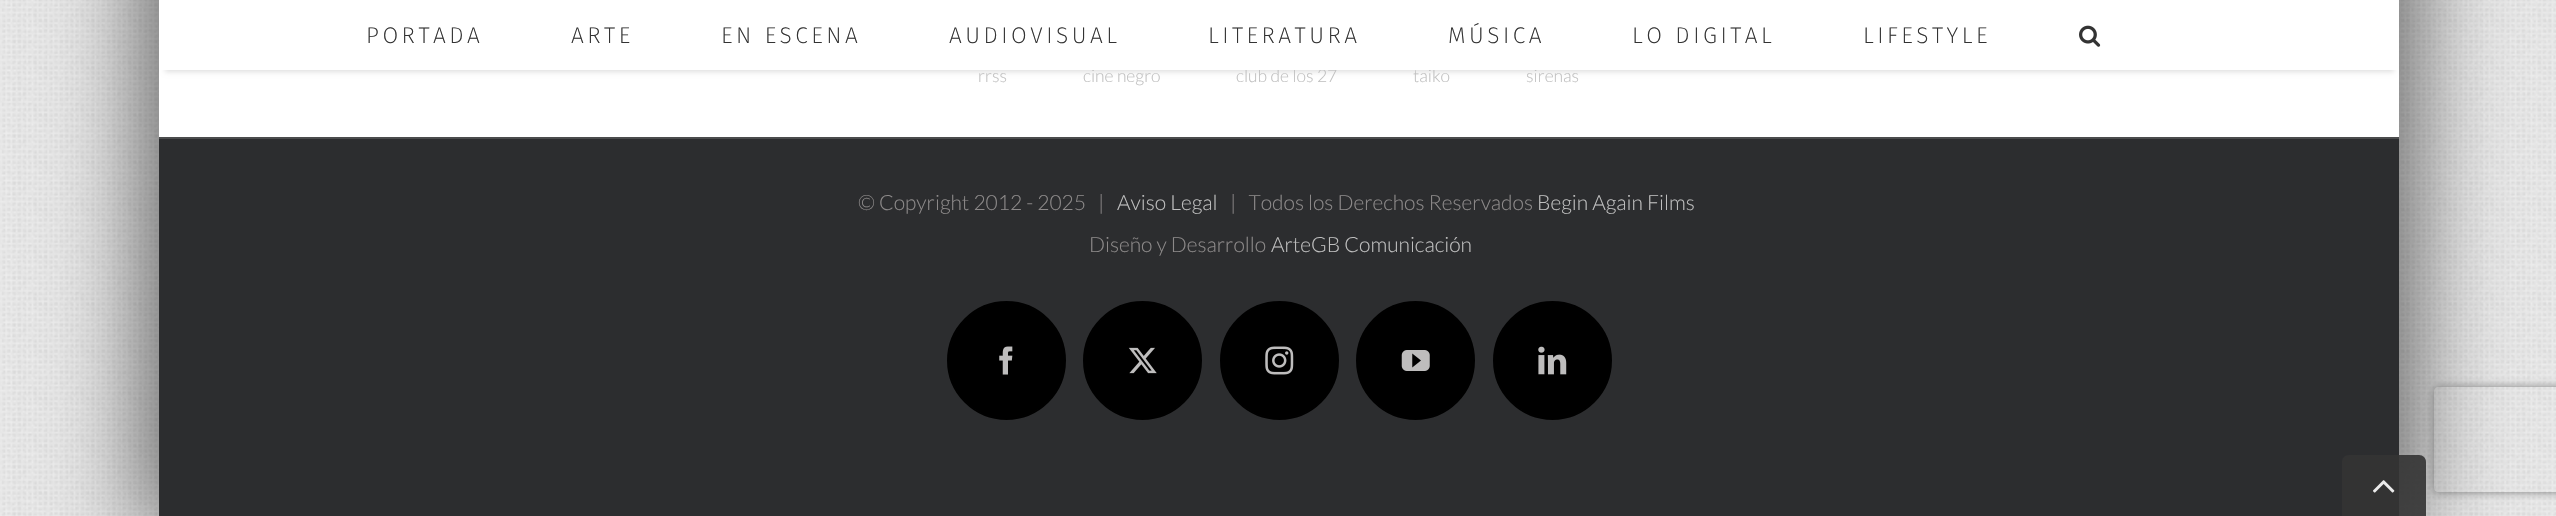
void draw(SkCanvas* canvas) {
	SkPaint fill;
	fill.setAntiAlias(true);
	auto makeFont = [&](const char* family, int weight, float size, bool italic = false) {
		SkFontStyle style(weight, SkFontStyle::kNormal_Width,
			italic ? SkFontStyle::kItalic_Slant : SkFontStyle::kUpright_Slant);
		SkFont result(fontMgr->matchFamilyStyle(family, style), size);
		result.setSubpixel(true);
		return result;
	};
	auto text = [&](const char* s, float x, float y, const SkFont& font) {
		canvas->drawString(s, x, y, font, fill);
	};
	auto spacedText = [&](const char* s, float x, float y, const SkFont& font, const SkPaint& ink, float letter, float word) {
		std::vector<SkGlyphID> glyphs(font.countText(s, strlen(s), SkTextEncoding::kUTF8));
		std::vector<float> xs(glyphs.size());
		font.textToGlyphs(s, strlen(s), SkTextEncoding::kUTF8, glyphs);
		font.getXPos(glyphs, xs, x);
		float extra = 0;
		for (size_t i = 0; i < glyphs.size(); i++) {
			xs[i] += extra;
			extra += letter + word * (glyphs[i] == font.unicharToGlyph(' '));
		}
		canvas->drawTextBlob(SkTextBlob::MakeFromPosHGlyphs(glyphs, xs, y, font), 0, 0, ink);
	};
	auto box = [&](float l, float t, float r, float b) {
		canvas->drawRect(SkRect::MakeLTRB(l, t, r, b), fill);
	};
	auto picture = [&](const char* path, float l, float t, float r, float b) {
		auto image = SkImages::DeferredFromEncodedData(SkData::MakeFromFileName(path));
		canvas->drawImageRect(image, SkRect::MakeLTRB(l, t, r, b), SkSamplingOptions());
	};
	canvas->clear(0xFFFFFFFF);
	picture("image0.png", 0, 515, 2556, 516);
	picture("image1.png", 0, 0, 2556, 516);
	fill.setColor(0x8C000000);
	fill.setMaskFilter(SkMaskFilter::MakeBlur(kNormal_SkBlurStyle, 44));
	canvas->drawRect(SkRect::MakeLTRB(142, -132, 2417, 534), fill);
	fill.setMaskFilter(nullptr);
	fill.setColor(0xFFFFFFFF);
	box(159, 70, 2399, 137);
	fill.setColor(0x1F000000);
	fill.setMaskFilter(SkMaskFilter::MakeBlur(kNormal_SkBlurStyle, 2.5f));
	canvas->drawRect(SkRect::MakeLTRB(165, 12, 2394, 72), fill);
	fill.setMaskFilter(nullptr);
	fill.setColor(0xFF2C2D2F);
	box(159, 139, 2399, 516);
	fill.setColor(0xFF4B4C4D);
	box(159, 137, 2399, 139);
	fill.setColor(0xFF000000);
	canvas->drawCircle(1006.5f, 360.5f, 58.5f, fill);
	fill.setStyle(SkPaint::kStroke_Style);
	fill.setStrokeWidth(2);
	canvas->drawCircle(1006.5f, 360.5f, 58.5f, fill);
	picture("image3.png", 999, 346, 1013, 375);
	fill.setStyle(SkPaint::kFill_Style);
	canvas->drawCircle(1142.5f, 360.5f, 58.5f, fill);
	fill.setStyle(SkPaint::kStroke_Style);
	canvas->drawCircle(1142.5f, 360.5f, 58.5f, fill);
	picture("image4.png", 1128, 347, 1157, 374);
	fill.setStyle(SkPaint::kFill_Style);
	canvas->drawCircle(1279.5f, 360.5f, 58.5f, fill);
	fill.setStyle(SkPaint::kStroke_Style);
	canvas->drawCircle(1279.5f, 360.5f, 58.5f, fill);
	picture("image5.png", 1265, 346, 1294, 375);
	fill.setStyle(SkPaint::kFill_Style);
	canvas->drawCircle(1415.5f, 360.5f, 58.5f, fill);
	fill.setStyle(SkPaint::kStroke_Style);
	canvas->drawCircle(1415.5f, 360.5f, 58.5f, fill);
	picture("image6.png", 1401, 350, 1430, 371);
	fill.setStyle(SkPaint::kFill_Style);
	canvas->drawCircle(1552.5f, 360.5f, 58.5f, fill);
	fill.setStyle(SkPaint::kStroke_Style);
	canvas->drawCircle(1552.5f, 360.5f, 58.5f, fill);
	picture("image7.png", 1538, 346, 1567, 375);
	canvas->save();
	canvas->clipPath(SkPathBuilder(SkPathFillType::kEvenOdd).moveTo(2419, 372).lineTo(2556, 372).lineTo(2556, 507).lineTo(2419, 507).close().moveTo(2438, 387).lineTo(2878, 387).cubicTo(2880, 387, 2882, 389, 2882, 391).lineTo(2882, 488).cubicTo(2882, 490, 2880, 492, 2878, 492).lineTo(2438, 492).cubicTo(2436, 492, 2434, 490, 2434, 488).lineTo(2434, 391).cubicTo(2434, 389, 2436, 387, 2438, 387).close().detach(), true);
	fill.setStyle(SkPaint::kFill_Style);
	fill.setColor(0xFF808080);
	fill.setMaskFilter(SkMaskFilter::MakeBlur(kNormal_SkBlurStyle, 4.5f));
	canvas->drawRoundRect(SkRect::MakeLTRB(2434, 387, 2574, 492), 4, 4, fill);
	fill.setMaskFilter(nullptr);
	canvas->restore();
	fill.setColor(0xE6333333);
	canvas->drawPath(SkPathBuilder().moveTo(2349, 455).lineTo(2419, 455).cubicTo(2423, 455, 2426, 458, 2426, 462).lineTo(2426, 516).lineTo(2342, 516).lineTo(2342, 462).cubicTo(2342, 458, 2345, 455, 2349, 455).close().detach(), fill);
	picture("image8.png", 2373, 480, 2395, 493);
	auto font1 = makeFont("Lato", 300, 17.5f);
	fill.setColor(0xFFBFBFBF);
	text("rrss", 978, 82, font1);
	text("cine negro", 1083, 82, font1);
	text("club de los 27", 1236, 82, font1);
	text("taiko", 1413, 82, font1);
	text("sirenas", 1526, 82, font1);
	fill.setColor(0xFFFFFFFF);
	box(159, 0, 2399, 70);
	picture("image2.png", 2079, 25, 2101, 47);
	auto font2 = makeFont("Fira Sans", 200, 22.75f);
	fill.setColor(0xFF333333);
	spacedText("LIFESTYLE", 1863, 43, font2, fill, 3.5f, 0);
	spacedText("LO DIGITAL", 1632, 43, font2, fill, 3.5f, 0);
	spacedText("MÚSICA", 1448, 43, font2, fill, 3.5f, 0);
	spacedText("LITERATURA", 1208, 43, font2, fill, 3.5f, 0);
	spacedText("AUDIOVISUAL", 949, 43, font2, fill, 3.5f, 0);
	spacedText("EN ESCENA", 721, 43, font2, fill, 3.5f, 0);
	spacedText("ARTE", 571, 43, font2, fill, 3.5f, 0);
	spacedText("PORTADA", 366, 43, font2, fill, 3.5f, 0);
	auto font3 = makeFont("Lato", 300, 21);
	fill.setColor(0xFF8C8989);
	text("© Copyright 2012 - 2025   |", 858, 210, font3);
	fill.setColor(0xFFBFBFBF);
	text("Aviso Legal", 1117, 210, font3);
	fill.setColor(0xFF8C8989);
	text("|   Todos los Derechos Reservados", 1230, 210, font3);
	fill.setColor(0xFFBFBFBF);
	text("Begin Again Films", 1537, 210, font3);
	fill.setColor(0xFF8C8989);
	text("Diseño y Desarrollo", 1089, 252, font3);
	fill.setColor(0xFFBFBFBF);
	text("ArteGB Comunicación", 1271, 252, font3);
}
